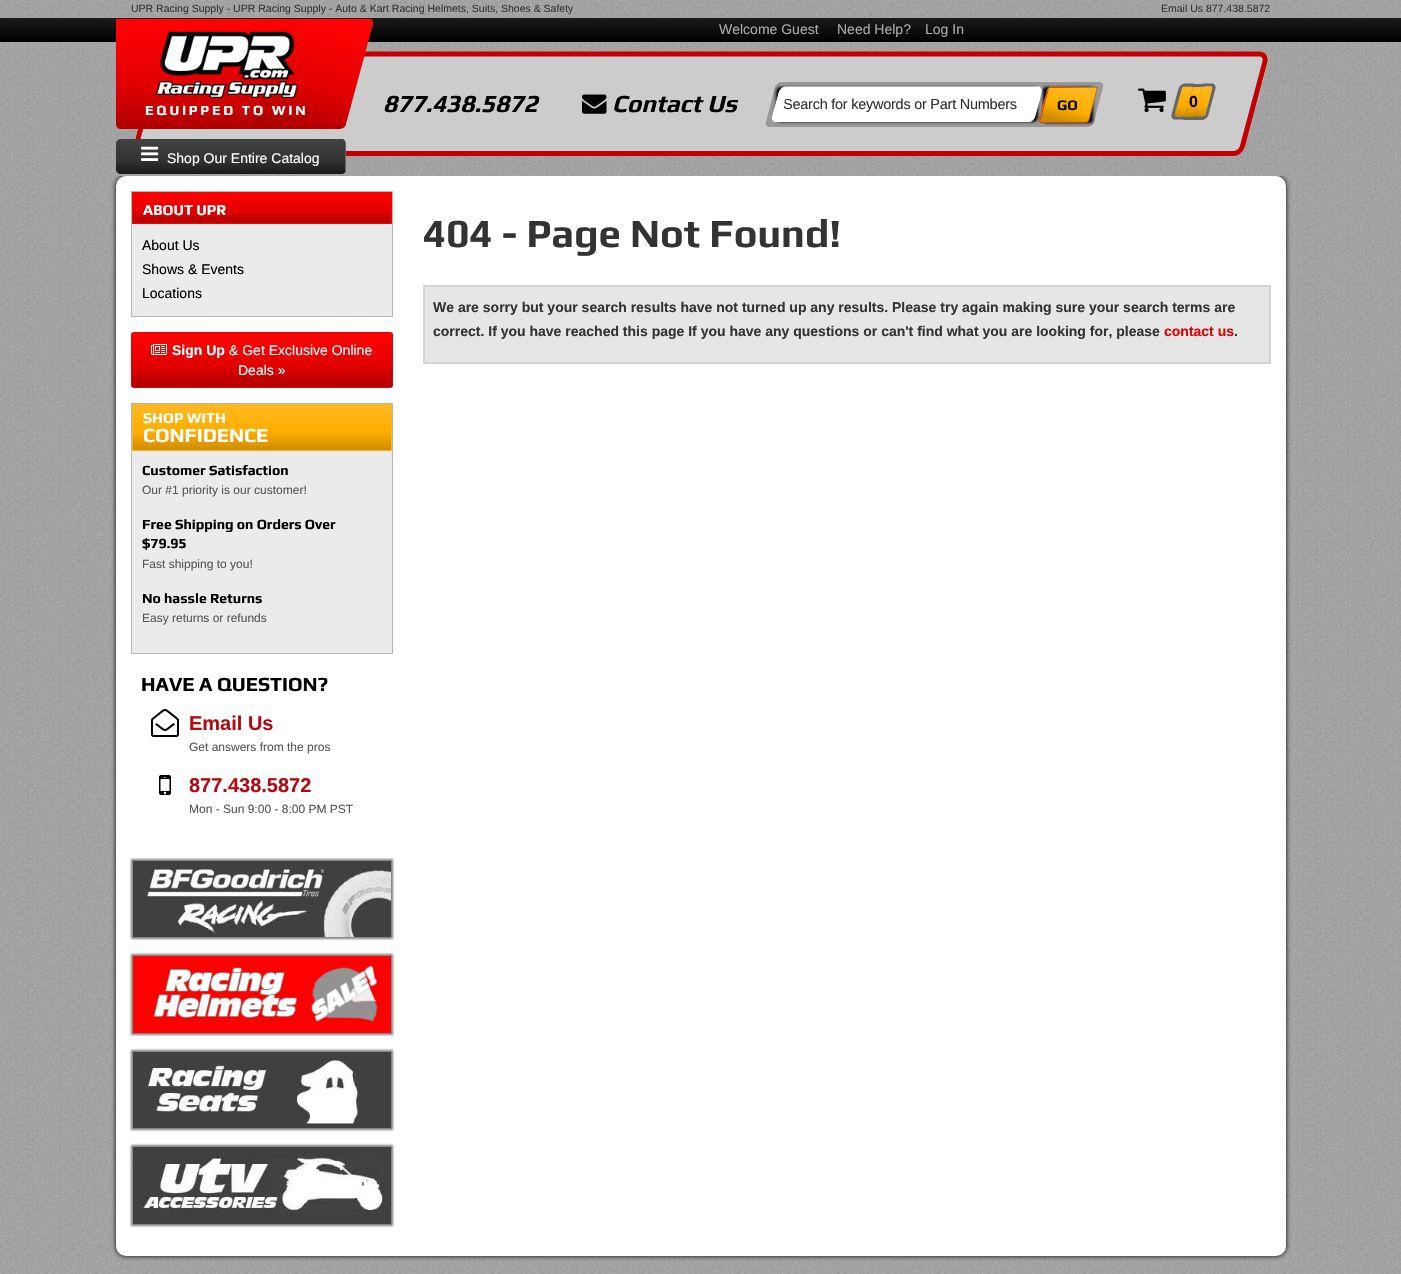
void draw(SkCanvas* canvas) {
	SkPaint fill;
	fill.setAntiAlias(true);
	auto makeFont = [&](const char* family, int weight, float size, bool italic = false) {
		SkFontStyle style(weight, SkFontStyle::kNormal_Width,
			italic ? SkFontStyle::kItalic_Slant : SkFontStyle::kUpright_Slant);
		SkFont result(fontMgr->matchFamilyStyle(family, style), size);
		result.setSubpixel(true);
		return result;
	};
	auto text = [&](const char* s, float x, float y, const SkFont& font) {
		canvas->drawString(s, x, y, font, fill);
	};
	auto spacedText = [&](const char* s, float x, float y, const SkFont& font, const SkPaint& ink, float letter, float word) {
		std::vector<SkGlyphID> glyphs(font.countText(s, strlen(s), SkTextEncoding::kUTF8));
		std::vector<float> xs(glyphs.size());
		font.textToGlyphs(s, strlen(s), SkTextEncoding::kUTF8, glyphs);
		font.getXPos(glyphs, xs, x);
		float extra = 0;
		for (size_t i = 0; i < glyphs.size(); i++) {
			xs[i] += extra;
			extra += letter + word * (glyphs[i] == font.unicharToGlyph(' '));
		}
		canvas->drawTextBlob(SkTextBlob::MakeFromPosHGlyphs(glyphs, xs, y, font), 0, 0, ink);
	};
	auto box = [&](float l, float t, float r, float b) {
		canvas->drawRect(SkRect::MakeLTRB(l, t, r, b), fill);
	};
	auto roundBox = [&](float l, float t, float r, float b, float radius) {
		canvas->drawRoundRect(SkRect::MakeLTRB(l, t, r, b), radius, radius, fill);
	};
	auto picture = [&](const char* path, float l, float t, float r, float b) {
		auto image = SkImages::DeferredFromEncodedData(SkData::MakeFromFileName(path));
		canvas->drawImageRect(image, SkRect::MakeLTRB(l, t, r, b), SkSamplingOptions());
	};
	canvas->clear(0xFFFFFFFF);
	picture("image0.png", 0, 0, 1401, 1274);
	{
		const SkColor colors[] = {0xFF1B1B1B, 0xFF000000};
		const float stops[] = {0, 1};
		const SkPoint ends[] = {{701, 18}, {701, 42}};
		fill.setShader(SkGradientShader::MakeLinear(ends, colors, stops, 2, SkTileMode::kClamp));
		fill.setAlpha(255);
	}
	box(0, 18, 1401, 42);
	fill.setShader(nullptr);
	fill.setColor(0xFFCCCCCC);
	canvas->drawPath(SkPathBuilder().moveTo(169, 52).lineTo(1260, 52).cubicTo(1266, 52, 1269, 56, 1268, 62).lineTo(1245, 146).cubicTo(1243, 152, 1238, 156, 1232, 156).lineTo(141, 156).cubicTo(135, 156, 132, 152, 133, 146).lineTo(156, 62).cubicTo(158, 56, 163, 52, 169, 52).close().detach(), fill);
	fill.setStyle(SkPaint::kStroke_Style);
	fill.setStrokeWidth(5);
	fill.setColor(0xFFC20003);
	canvas->drawPath(SkPathBuilder().moveTo(168, 54).lineTo(1259.5f, 54).cubicTo(1263.5f, 54, 1266, 57.5f, 1265, 61.5f).lineTo(1242.5f, 146).cubicTo(1241.5f, 150.5f, 1237, 153.5f, 1233, 153.5f).lineTo(141.5f, 153.5f).cubicTo(137.5f, 153.5f, 135, 150.5f, 136, 146).lineTo(158.5f, 61.5f).cubicTo(159.5f, 57.5f, 164, 54, 168, 54).close().detach(), fill);
	fill.setStyle(SkPaint::kFill_Style);
	{
		const SkColor colors[] = {0xFFFF0202, 0xFFE20000, 0xFFAF0000};
		const float stops[] = {0, 0.6f, 1};
		const SkPoint ends[] = {{227, 19}, {227, 129}};
		fill.setShader(SkGradientShader::MakeLinear(ends, colors, stops, 3, SkTileMode::kClamp));
		fill.setAlpha(255);
	}
	canvas->drawPath(SkPathBuilder().moveTo(116, 19).lineTo(338, 19).lineTo(338, 129).lineTo(121, 129).cubicTo(118, 129, 116, 127, 116, 124).close().detach(), fill);
	{
		const SkColor colors[] = {0xFFFF0202, 0xFFE20000, 0xFFAF0000};
		const float stops[] = {0, 0.6f, 1};
		const SkPoint ends[] = {{328, 19}, {298, 129}};
		fill.setShader(SkGradientShader::MakeLinear(ends, colors, stops, 3, SkTileMode::kClamp));
		fill.setAlpha(255);
	}
	canvas->drawPath(SkPathBuilder().moveTo(281, 19).lineTo(370, 19).cubicTo(372, 19, 374, 21, 373, 24).lineTo(346, 124).cubicTo(346, 126, 343, 129, 340, 129).lineTo(252, 129).close().detach(), fill);
	picture("image1.png", 155, 31, 298, 98);
	picture("image2.png", 582, 94, 607, 114);
	fill.setShader(nullptr);
	fill.setColor(0xFF999999);
	canvas->drawPath(SkPathBuilder().moveTo(782, 82).lineTo(1099, 82).cubicTo(1102, 82, 1104, 84, 1103, 87).lineTo(1094, 122).cubicTo(1093, 125, 1090, 127, 1087, 127).lineTo(770, 127).cubicTo(767, 127, 765, 125, 766, 122).lineTo(775, 87).cubicTo(776, 84, 779, 82, 782, 82).close().detach(), fill);
	fill.setColor(0xFF000000);
	fill.setMaskFilter(SkMaskFilter::MakeBlur(kNormal_SkBlurStyle, 1.5f));
	canvas->drawRoundRect(SkRect::MakeLTRB(776, 87, 1038, 122), 5, 5, fill);
	fill.setMaskFilter(nullptr);
	fill.setColor(0xFFFFFFFF);
	canvas->drawPath(SkPathBuilder().moveTo(785, 87).lineTo(1038, 87).cubicTo(1041, 87, 1042, 89, 1042, 92).lineTo(1035, 117).cubicTo(1034, 120, 1031, 122, 1029, 122).lineTo(776, 122).cubicTo(773, 122, 772, 120, 772, 117).lineTo(779, 92).cubicTo(780, 89, 783, 87, 785, 87).close().detach(), fill);
	fill.setStyle(SkPaint::kStroke_Style);
	fill.setStrokeWidth(1);
	canvas->drawPath(SkPathBuilder().moveTo(785.5f, 87).lineTo(1038, 87).cubicTo(1040.5f, 87, 1042, 89, 1041, 91.5f).lineTo(1034.5f, 117).cubicTo(1033.5f, 119.5f, 1031, 121.5f, 1028.5f, 121.5f).lineTo(776, 121.5f).cubicTo(773.5f, 121.5f, 772, 119.5f, 773, 117).lineTo(779.5f, 91.5f).cubicTo(780.5f, 89, 783, 87, 785.5f, 87).close().detach(), fill);
	fill.setStyle(SkPaint::kFill_Style);
	fill.setColor(0xFF000000);
	fill.setMaskFilter(SkMaskFilter::MakeBlur(kNormal_SkBlurStyle, 1.5f));
	canvas->drawRoundRect(SkRect::MakeLTRB(1043, 87, 1093, 123), 3, 3, fill);
	fill.setMaskFilter(nullptr);
	fill.setColor(0xFFE20000);
	canvas->drawPath(SkPathBuilder().moveTo(1051, 87).lineTo(1095, 87).cubicTo(1097, 87, 1098, 88, 1097, 90).lineTo(1089, 120).cubicTo(1089, 121, 1087, 123, 1085, 123).lineTo(1041, 123).cubicTo(1040, 123, 1039, 121, 1039, 120).lineTo(1047, 90).cubicTo(1048, 88, 1049, 87, 1051, 87).close().detach(), fill);
	{
		const SkColor colors[] = {0xFFFFB81F, 0xFFFFAE00, 0xFFCC8B00};
		const float stops[] = {0, 0.6f, 1};
		const SkPoint ends[] = {{1073, 88}, {1064, 122}};
		fill.setShader(SkGradientShader::MakeLinear(ends, colors, stops, 3, SkTileMode::kClamp));
		fill.setAlpha(255);
	}
	canvas->drawPath(SkPathBuilder().moveTo(1049, 88).lineTo(1097, 88).lineTo(1088, 122).lineTo(1040, 122).close().detach(), fill);
	fill.setStyle(SkPaint::kStroke_Style);
	fill.setShader(nullptr);
	fill.setColor(0xFFCC8B00);
	canvas->drawPath(SkPathBuilder().moveTo(1051, 87).lineTo(1096, 87.5f).lineTo(1097, 88.5f).lineTo(1090, 114.5f).cubicTo(1089.5f, 117, 1089, 122, 1085.5f, 122).lineTo(1049, 122).cubicTo(1039, 122, 1038.5f, 123.5f, 1041, 114.5f).lineTo(1046.5f, 94.5f).cubicTo(1047, 92.5f, 1047.5f, 87, 1051, 87).close().detach(), fill);
	picture("image3.png", 1138, 88, 1166, 113);
	fill.setStyle(SkPaint::kFill_Style);
	{
		const SkColor colors[] = {0xFFFFB81F, 0xFFFFAE00, 0xFFCC8B00};
		const float stops[] = {0, 0.6f, 1};
		const SkPoint ends[] = {{1194, 87}, {1194, 117}};
		fill.setShader(SkGradientShader::MakeLinear(ends, colors, stops, 3, SkTileMode::kClamp));
		fill.setAlpha(255);
	}
	box(1183, 87, 1204, 117);
	fill.setShader(nullptr);
	fill.setColor(0xFF666666);
	box(1183, 84, 1204, 87);
	box(1183, 117, 1204, 120);
	{
		const SkColor colors[] = {0xFFFFB81F, 0xFFFFAE00, 0xFFCC8B00};
		const float stops[] = {0, 0.6f, 1};
		const SkPoint ends[] = {{1188, 87}, {1180, 117}};
		fill.setShader(SkGradientShader::MakeLinear(ends, colors, stops, 3, SkTileMode::kClamp));
		fill.setAlpha(255);
	}
	canvas->drawPath(SkPathBuilder().moveTo(1182, 86.5f).lineTo(1193, 86.5f).lineTo(1185, 116.5f).lineTo(1174, 116.5f).close().detach(), fill);
	fill.setShader(nullptr);
	fill.setColor(0xFF666666);
	canvas->drawPath(SkPathBuilder(SkPathFillType::kEvenOdd).moveTo(1185, 83.5f).lineTo(1194, 83.5f).lineTo(1184.5f, 119.5f).lineTo(1175.5f, 119.5f).cubicTo(1172.5f, 119.5f, 1171, 117.5f, 1171.5f, 114.5f).lineTo(1178.5f, 88.5f).cubicTo(1179.5f, 86, 1182, 83.5f, 1185, 83.5f).close().moveTo(1184, 86.5f).lineTo(1193, 86.5f).lineTo(1185, 116.5f).cubicTo(1172.5f, 116.5f, 1173.5f, 119, 1177, 106).lineTo(1182, 88).cubicTo(1182.5f, 87, 1183.5f, 86.5f, 1184, 86.5f).close().detach(), fill);
	{
		const SkColor colors[] = {0xFFFFB81F, 0xFFFFAE00, 0xFFCC8B00};
		const float stops[] = {0, 0.6f, 1};
		const SkPoint ends[] = {{1208, 87}, {1199, 117}};
		fill.setShader(SkGradientShader::MakeLinear(ends, colors, stops, 3, SkTileMode::kClamp));
		fill.setAlpha(255);
	}
	canvas->drawPath(SkPathBuilder().moveTo(1194, 116.5f).lineTo(1202, 86.5f).lineTo(1213, 86.5f).lineTo(1205, 116.5f).close().detach(), fill);
	fill.setShader(nullptr);
	fill.setColor(0xFF666666);
	canvas->drawPath(SkPathBuilder(SkPathFillType::kEvenOdd).moveTo(1203, 83.5f).lineTo(1212, 83.5f).cubicTo(1214.5f, 83.5f, 1216, 86, 1215.5f, 88.5f).lineTo(1208.5f, 114.5f).cubicTo(1208, 117.5f, 1205, 119.5f, 1202, 119.5f).lineTo(1193, 119.5f).close().moveTo(1202, 86.5f).cubicTo(1214.5f, 86.5f, 1213.5f, 84, 1210, 97.5f).lineTo(1206.5f, 110.5f).cubicTo(1205.5f, 114.5f, 1206, 116.5f, 1201.5f, 116.5f).lineTo(1194, 116.5f).close().detach(), fill);
	canvas->save();
	canvas->clipRect(SkRect::MakeLTRB(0, 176, 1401, 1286));
	fill.setColor(0xFF000000);
	fill.setMaskFilter(SkMaskFilter::MakeBlur(kNormal_SkBlurStyle, 2.5f));
	canvas->drawRoundRect(SkRect::MakeLTRB(116, 176, 1286, 1256), 10, 10, fill);
	fill.setMaskFilter(nullptr);
	canvas->restore();
	fill.setColor(0xFFE20000);
	roundBox(116, 139, 346, 174, 5);
	canvas->save();
	canvas->clipPath(SkPathBuilder().moveTo(121, 139).lineTo(341, 139).cubicTo(344, 139, 346, 141, 346, 144).lineTo(346, 169).cubicTo(346, 172, 344, 174, 341, 174).lineTo(121, 174).cubicTo(118, 174, 116, 172, 116, 169).lineTo(116, 144).cubicTo(116, 141, 118, 139, 121, 139).close().detach(), true);
	{
		const SkColor colors[] = {0xFF424242, 0xFF333333, 0xFF1A1A1A};
		const float stops[] = {0, 0.6f, 1};
		const SkPoint ends[] = {{231, 139}, {231, 174}};
		fill.setShader(SkGradientShader::MakeLinear(ends, colors, stops, 3, SkTileMode::kClamp));
		fill.setAlpha(255);
	}
	canvas->drawPath(SkPathBuilder().moveTo(121, 139).lineTo(345, 139).lineTo(345, 174).lineTo(121, 174).cubicTo(118, 174, 116, 172, 116, 169).lineTo(116, 144).cubicTo(116, 141, 118, 139, 121, 139).close().detach(), fill);
	canvas->restore();
	fill.setShader(nullptr);
	fill.setColor(0xFF666666);
	box(345, 142, 346, 172);
	picture("image4.png", 141, 146, 159, 161);
	fill.setColor(0xFFFFFFFF);
	roundBox(116, 176, 1286, 1256, 10);
	fill.setColor(0xFFEBEBEB);
	box(132, 224, 392, 316);
	fill.setStyle(SkPaint::kStroke_Style);
	fill.setColor(0xFFB6B6B6);
	canvas->drawRect(SkRect::MakeLTRB(131.5f, 191.5f, 392.5f, 316.5f), fill);
	fill.setStyle(SkPaint::kFill_Style);
	{
		const SkColor colors[] = {0xFFFF0202, 0xFFE20000, 0xFFAF0000};
		const float stops[] = {0, 0.6f, 1};
		const SkPoint ends[] = {{262, 193}, {262, 223}};
		fill.setShader(SkGradientShader::MakeLinear(ends, colors, stops, 3, SkTileMode::kClamp));
		fill.setAlpha(255);
	}
	box(133, 193, 391, 223);
	fill.setStyle(SkPaint::kStroke_Style);
	fill.setShader(nullptr);
	fill.setColor(0xFFFB0000);
	canvas->drawRect(SkRect::MakeLTRB(132.5f, 192.5f, 391.5f, 223.5f), fill);
	fill.setStyle(SkPaint::kFill_Style);
	fill.setColor(0xFFE20000);
	roundBox(131, 332, 393, 388, 3);
	{
		const SkColor colors[] = {0xFFFF0202, 0xFFE20000, 0xFFAF0000};
		const float stops[] = {0, 0.6f, 1};
		const SkPoint ends[] = {{262, 333}, {262, 387}};
		fill.setShader(SkGradientShader::MakeLinear(ends, colors, stops, 3, SkTileMode::kClamp));
		fill.setAlpha(255);
	}
	box(132, 333, 392, 387);
	picture("image5.png", 151, 344, 167, 355);
	fill.setShader(nullptr);
	fill.setColor(0xFFEBEBEB);
	box(132, 451, 392, 653);
	fill.setStyle(SkPaint::kStroke_Style);
	fill.setColor(0xFFB6B6B6);
	canvas->drawRect(SkRect::MakeLTRB(131.5f, 403.5f, 392.5f, 653.5f), fill);
	fill.setStyle(SkPaint::kFill_Style);
	{
		const SkColor colors[] = {0xFFFFB81F, 0xFFFFAE00, 0xFFCC8B00};
		const float stops[] = {0, 0.6f, 1};
		const SkPoint ends[] = {{262, 405}, {262, 450}};
		fill.setShader(SkGradientShader::MakeLinear(ends, colors, stops, 3, SkTileMode::kClamp));
		fill.setAlpha(255);
	}
	box(133, 405, 391, 450);
	fill.setStyle(SkPaint::kStroke_Style);
	fill.setShader(nullptr);
	fill.setColor(0xFFFFB61A);
	canvas->drawRect(SkRect::MakeLTRB(132.5f, 404.5f, 391.5f, 450.5f), fill);
	picture("image6.png", 151, 709, 179, 737);
	picture("image7.png", 159, 775, 171, 795);
	fill.setStyle(SkPaint::kFill_Style);
	fill.setColor(0x80000000);
	fill.setMaskFilter(SkMaskFilter::MakeBlur(kNormal_SkBlurStyle, 1));
	canvas->drawRect(SkRect::MakeLTRB(131, 859, 393, 939), fill);
	fill.setMaskFilter(nullptr);
	picture("image8.png", 133, 861, 391, 937);
	fill.setMaskFilter(SkMaskFilter::MakeBlur(kNormal_SkBlurStyle, 1));
	canvas->drawRect(SkRect::MakeLTRB(131, 954, 393, 1035), fill);
	fill.setMaskFilter(nullptr);
	picture("image9.png", 133, 956, 391, 1033);
	fill.setMaskFilter(SkMaskFilter::MakeBlur(kNormal_SkBlurStyle, 1));
	canvas->drawRect(SkRect::MakeLTRB(131, 1050, 393, 1130), fill);
	fill.setMaskFilter(nullptr);
	picture("image10.png", 133, 1052, 391, 1128);
	fill.setMaskFilter(SkMaskFilter::MakeBlur(kNormal_SkBlurStyle, 1));
	canvas->drawRect(SkRect::MakeLTRB(131, 1145, 393, 1226), fill);
	fill.setMaskFilter(nullptr);
	picture("image11.png", 133, 1147, 391, 1224);
	fill.setColor(0xFFE6E6E6);
	canvas->drawRect(SkRect::MakeLTRB(424, 286, 1270, 363), fill);
	fill.setStyle(SkPaint::kStroke_Style);
	fill.setStrokeWidth(2);
	fill.setColor(0xFFD4D4D4);
	canvas->drawRect(SkRect::MakeLTRB(424, 286, 1270, 363), fill);
	auto font1 = makeFont("Liberation Sans", 400, 10.5f);
	fill.setStyle(SkPaint::kFill_Style);
	fill.setColor(0xFF333333);
	text("UPR Racing Supply - UPR Racing Supply - Auto & Kart Racing Helmets, Suits, Shoes & Safety", 131, 12, font1);
	text("Email Us 877.438.5872", 1161, 12, font1);
	auto font2 = makeFont("Liberation Sans", 400, 14);
	fill.setColor(0xFFAAAAAA);
	text("Welcome Guest", 719, 34, font2);
	text("Need Help?", 837, 34, font2);
	text("Log In", 925, 34, font2);
	auto font3 = makeFont("Play", 700, 14);
	fill.setColor(0xFFFFFFFF);
	spacedText("EQUIPPED TO WIN", 145, 115, font3, fill, 2.75f, 0);
	auto font4 = makeFont("Play", 700, 24.5f, true);
	fill.setColor(0xFF000000);
	text("877.438.5872", 383, 112, font4);
	text("Contact Us", 612, 112, font4);
	canvas->save();
	canvas->clipPath(SkPathBuilder().moveTo(786.5f, 94.5f).lineTo(1033, 94.5f).lineTo(1027.5f, 114).lineTo(781, 114).close().detach(), true);
	auto font5 = makeFont("Liberation Sans", 400, 14.5f);
	fill.setColor(0xFF333333);
	spacedText("Search for keywords or Part Numbers", 783, 109, font5, fill, -0.25f, 0);
	canvas->restore();
	auto font6 = makeFont("Play", 700, 14.5f);
	fill.setColor(0xFF000000);
	text("GO", 1057, 110, font6);
	auto font7 = makeFont("Liberation Sans", 700, 16);
	text("0", 1189, 107, font7);
	fill.setColor(0xFFFFFFFF);
	text("Shop Our Entire Catalog", 167, 163, font2);
	auto font8 = makeFont("Play", 700, 15);
	text("ABOUT UPR", 143, 215, font8);
	fill.setColor(0xFF000000);
	text("About Us", 142, 250, font2);
	text("Shows & Events", 142, 274, font2);
	text("Locations", 142, 298, font2);
	auto font9 = makeFont("Liberation Sans", 700, 14);
	fill.setColor(0xFFFFFFFF);
	text("Sign Up", 172, 355, font9);
	text("& Get Exclusive Online", 229, 355, font2);
	text("Deals »", 238, 375, font2);
	text("SHOP WITH", 143, 423, font8);
	auto font10 = makeFont("Play", 700, 20);
	text("CONFIDENCE", 143, 442, font10);
	fill.setColor(0xFF000000);
	text("Customer Satisfaction", 142, 475, font3);
	auto font11 = makeFont("Liberation Sans", 400, 12);
	fill.setColor(0xFF555555);
	text("Our #1 priority is our customer!", 142, 494, font11);
	fill.setColor(0xFF000000);
	text("Free Shipping on Orders Over", 142, 529, font3);
	text("$79.95", 142, 548, font3);
	fill.setColor(0xFF555555);
	text("Fast shipping to you!", 142, 568, font11);
	fill.setColor(0xFF000000);
	text("No hassle Returns", 142, 603, font3);
	fill.setColor(0xFF555555);
	text("Easy returns or refunds", 142, 622, font11);
	fill.setColor(0xFF000000);
	text("HAVE A QUESTION?", 141, 691, font10);
	auto font12 = makeFont("Liberation Sans", 700, 20);
	fill.setColor(0xFFB40A0F);
	text("Email Us", 189, 730, font12);
	fill.setColor(0xFF555555);
	text("Get answers from the pros", 189, 751, font11);
	fill.setColor(0xFFB40A0F);
	text("877.438.5872", 189, 792, font12);
	fill.setColor(0xFF555555);
	text("Mon - Sun 9:00 - 8:00 PM PST", 189, 813, font11);
	auto font13 = makeFont("Play", 700, 40);
	fill.setColor(0xFF333333);
	text("404 - Page Not Found!", 423, 247, font13);
	text("We are sorry but your search results have not turned up any results. Please try again making sure your search terms are", 433, 312, font9);
	text("correct. If you have reached this page If you have any questions or can't find what you are looking for, please", 433, 336, font9);
	fill.setColor(0xFFE20000);
	text("contact us", 1164, 336, font9);
	fill.setColor(0xFF333333);
	text(".", 1234, 336, font9);
}
